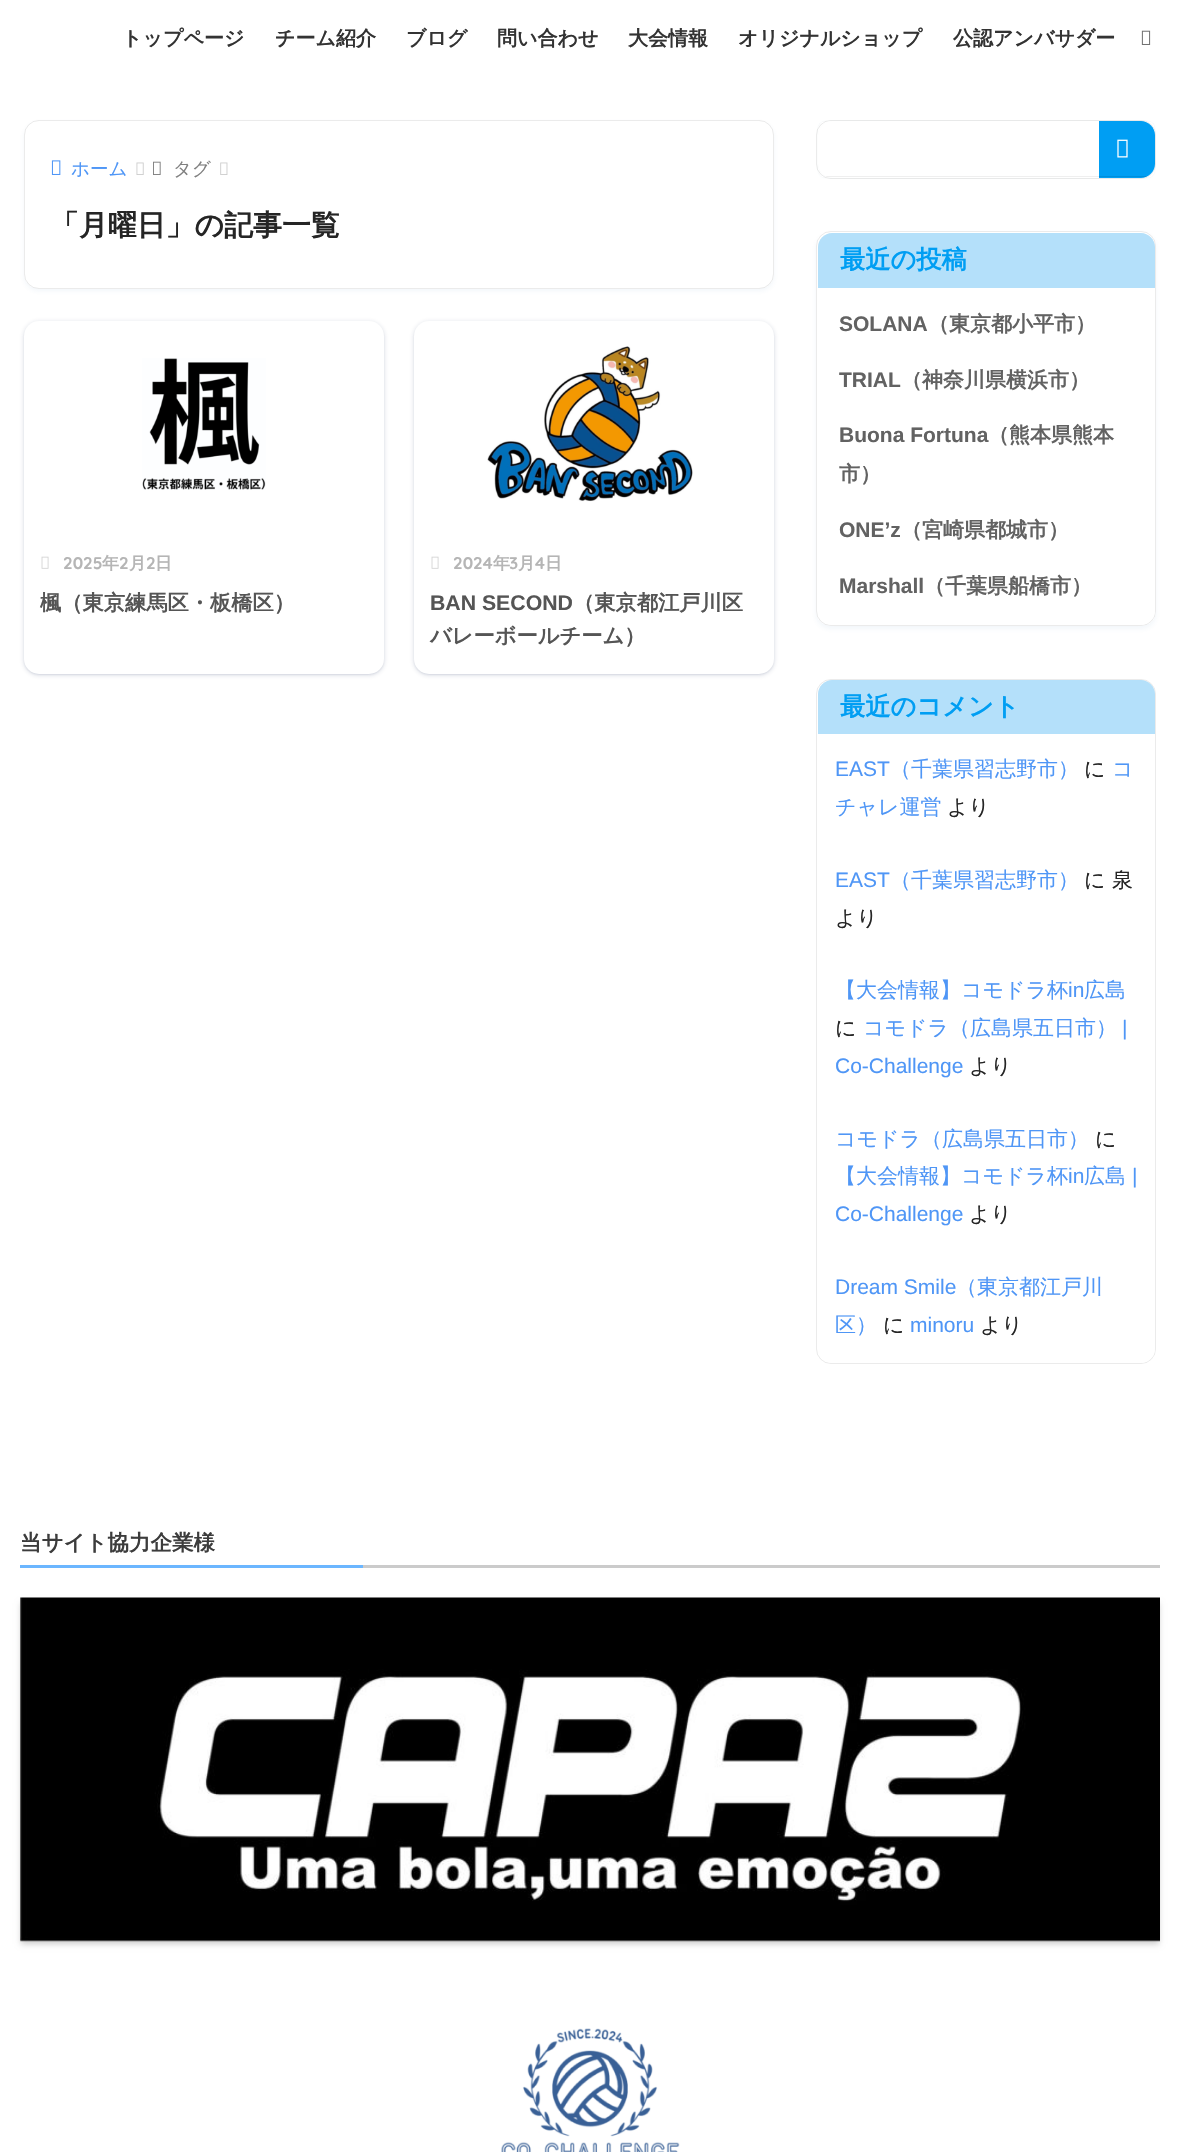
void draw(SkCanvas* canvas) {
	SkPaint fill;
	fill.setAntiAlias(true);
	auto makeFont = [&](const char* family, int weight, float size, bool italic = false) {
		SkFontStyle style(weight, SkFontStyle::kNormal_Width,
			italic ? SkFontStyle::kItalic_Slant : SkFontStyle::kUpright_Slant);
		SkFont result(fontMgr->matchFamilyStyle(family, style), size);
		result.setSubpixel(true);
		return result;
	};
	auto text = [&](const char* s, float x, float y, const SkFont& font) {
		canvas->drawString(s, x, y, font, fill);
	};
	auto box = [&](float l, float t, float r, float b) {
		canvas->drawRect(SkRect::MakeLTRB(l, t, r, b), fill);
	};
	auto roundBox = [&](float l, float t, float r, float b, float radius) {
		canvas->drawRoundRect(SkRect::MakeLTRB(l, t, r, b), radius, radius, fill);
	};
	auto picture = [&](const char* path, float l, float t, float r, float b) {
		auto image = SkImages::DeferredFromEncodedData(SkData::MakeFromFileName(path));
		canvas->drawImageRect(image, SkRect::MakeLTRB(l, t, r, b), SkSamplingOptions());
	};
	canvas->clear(0xFFFFFFFF);
	picture("image0.png", 1141, 30, 1151, 45);
	fill.setColor(0x124385BB);
	fill.setMaskFilter(SkMaskFilter::MakeBlur(kNormal_SkBlurStyle, 2.5f));
	canvas->drawRoundRect(SkRect::MakeLTRB(24, 123, 774, 291), 15, 15, fill);
	fill.setMaskFilter(nullptr);
	fill.setColor(0xFFFFFFFF);
	roundBox(24, 120, 774, 289, 15);
	fill.setStyle(SkPaint::kStroke_Style);
	fill.setStrokeWidth(1);
	fill.setColor(0x14000000);
	canvas->drawRoundRect(SkRect::MakeLTRB(24.5f, 120.5f, 773.5f, 288.5f), 14.5f, 14.5f, fill);
	picture("image1.png", 51, 160, 61, 175);
	picture("image2.png", 136, 162, 144, 175);
	picture("image3.png", 153, 161, 161, 175);
	picture("image4.png", 220, 162, 228, 175);
	fill.setStyle(SkPaint::kFill_Style);
	fill.setColor(0x1A182C54);
	fill.setMaskFilter(SkMaskFilter::MakeBlur(kNormal_SkBlurStyle, 2));
	canvas->drawRoundRect(SkRect::MakeLTRB(23, 321, 385, 676), 16, 16, fill);
	fill.setMaskFilter(nullptr);
	fill.setMaskFilter(SkMaskFilter::MakeBlur(kNormal_SkBlurStyle, 1));
	canvas->drawRoundRect(SkRect::MakeLTRB(24, 323, 384, 675), 15, 15, fill);
	fill.setMaskFilter(nullptr);
	fill.setColor(0xFFFFFFFF);
	roundBox(24, 321, 384, 674, 15);
	picture("image5.png", 142, 358, 266, 490);
	picture("image6.png", 41, 556, 49, 569);
	fill.setColor(0x1A182C54);
	fill.setMaskFilter(SkMaskFilter::MakeBlur(kNormal_SkBlurStyle, 2));
	canvas->drawRoundRect(SkRect::MakeLTRB(413, 321, 775, 676), 16, 16, fill);
	fill.setMaskFilter(nullptr);
	fill.setMaskFilter(SkMaskFilter::MakeBlur(kNormal_SkBlurStyle, 1));
	canvas->drawRoundRect(SkRect::MakeLTRB(414, 323, 774, 675), 15, 15, fill);
	fill.setMaskFilter(nullptr);
	fill.setColor(0xFFFFFFFF);
	roundBox(414, 321, 774, 674, 15);
	picture("image7.png", 487, 346, 693, 502);
	picture("image6.png", 431, 556, 439, 569);
	fill.setStyle(SkPaint::kStroke_Style);
	fill.setColor(0x14000000);
	canvas->drawRoundRect(SkRect::MakeLTRB(816.5f, 120.5f, 1155.5f, 178.5f), 14.5f, 14.5f, fill);
	canvas->save();
	canvas->clipPath(SkPathBuilder(SkPathFillType::kEvenOdd).moveTo(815, 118).lineTo(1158, 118).lineTo(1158, 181).lineTo(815, 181).close().moveTo(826, 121).lineTo(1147, 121).cubicTo(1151.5f, 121, 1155, 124.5f, 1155, 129).lineTo(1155, 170).cubicTo(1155, 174.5f, 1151.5f, 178, 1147, 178).lineTo(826, 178).cubicTo(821.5f, 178, 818, 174.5f, 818, 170).lineTo(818, 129).cubicTo(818, 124.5f, 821.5f, 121, 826, 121).close().detach(), true);
	fill.setStyle(SkPaint::kFill_Style);
	fill.setColor(0x1A001E64);
	fill.setMaskFilter(SkMaskFilter::MakeBlur(kNormal_SkBlurStyle, 0.5f));
	canvas->drawRoundRect(SkRect::MakeLTRB(818, 121, 1155, 178), 8, 8, fill);
	fill.setMaskFilter(nullptr);
	canvas->restore();
	canvas->save();
	canvas->clipPath(SkPathBuilder().moveTo(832, 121).lineTo(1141, 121).cubicTo(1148.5f, 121, 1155, 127.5f, 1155, 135).lineTo(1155, 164).cubicTo(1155, 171.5f, 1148.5f, 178, 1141, 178).lineTo(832, 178).cubicTo(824.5f, 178, 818, 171.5f, 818, 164).lineTo(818, 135).cubicTo(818, 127.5f, 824.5f, 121, 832, 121).close().detach(), true);
	fill.setColor(0x1A000C42);
	fill.setMaskFilter(SkMaskFilter::MakeBlur(kNormal_SkBlurStyle, 8));
	canvas->drawRoundRect(SkRect::MakeLTRB(821, 133, 1151, 181), 4, 4, fill);
	fill.setMaskFilter(nullptr);
	canvas->restore();
	fill.setColor(0xFFFFFFFF);
	roundBox(818, 121, 1155, 178, 14);
	canvas->save();
	canvas->clipPath(SkPathBuilder().moveTo(832, 121).lineTo(1141, 121).cubicTo(1148.5f, 121, 1155, 127.5f, 1155, 135).lineTo(1155, 164).cubicTo(1155, 171.5f, 1148.5f, 178, 1141, 178).lineTo(832, 178).cubicTo(824.5f, 178, 818, 171.5f, 818, 164).lineTo(818, 135).cubicTo(818, 127.5f, 824.5f, 121, 832, 121).close().detach(), true);
	fill.setColor(0xFFEFEFEF);
	box(821, 176, 1151, 177);
	canvas->restore();
	fill.setColor(0xFF009EF3);
	canvas->drawPath(SkPathBuilder().moveTo(1099, 121).lineTo(1141, 121).cubicTo(1148.5f, 121, 1155, 127.5f, 1155, 135).lineTo(1155, 164).cubicTo(1155, 171.5f, 1148.5f, 178, 1141, 178).lineTo(1099, 178).close().detach(), fill);
	canvas->save();
	canvas->clipPath(SkPathBuilder().moveTo(832, 121).lineTo(1141, 121).cubicTo(1148.5f, 121, 1155, 127.5f, 1155, 135).lineTo(1155, 164).cubicTo(1155, 171.5f, 1148.5f, 178, 1141, 178).lineTo(832, 178).cubicTo(824.5f, 178, 818, 171.5f, 818, 164).lineTo(818, 135).cubicTo(818, 127.5f, 824.5f, 121, 832, 121).close().detach(), true);
	fill.setColor(0x1A000000);
	box(1099, 176, 1151, 177);
	canvas->restore();
	picture("image8.png", 1117, 139, 1128, 158);
	canvas->save();
	canvas->clipPath(SkPathBuilder(SkPathFillType::kEvenOdd).moveTo(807, 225).lineTo(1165, 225).lineTo(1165, 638).lineTo(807, 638).close().moveTo(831, 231).lineTo(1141, 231).cubicTo(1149.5f, 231, 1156, 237.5f, 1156, 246).lineTo(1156, 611).cubicTo(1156, 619.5f, 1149.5f, 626, 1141, 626).lineTo(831, 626).cubicTo(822.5f, 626, 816, 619.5f, 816, 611).lineTo(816, 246).cubicTo(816, 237.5f, 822.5f, 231, 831, 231).close().detach(), true);
	fill.setColor(0x124385BB);
	fill.setMaskFilter(SkMaskFilter::MakeBlur(kNormal_SkBlurStyle, 2.5f));
	canvas->drawRoundRect(SkRect::MakeLTRB(816, 234, 1156, 629), 15, 15, fill);
	fill.setMaskFilter(nullptr);
	canvas->restore();
	fill.setStyle(SkPaint::kStroke_Style);
	fill.setColor(0x14000000);
	canvas->drawRoundRect(SkRect::MakeLTRB(816.5f, 231.5f, 1155.5f, 625.5f), 14.5f, 14.5f, fill);
	fill.setStyle(SkPaint::kFill_Style);
	fill.setColor(0xFFB4E0FA);
	canvas->drawPath(SkPathBuilder().moveTo(832, 233).lineTo(1141, 233).cubicTo(1148.5f, 233, 1155, 239.5f, 1155, 247).lineTo(1155, 288).lineTo(818, 288).lineTo(818, 247).cubicTo(818, 239.5f, 824.5f, 233, 832, 233).close().detach(), fill);
	fill.setColor(0xFFFFFFFF);
	canvas->drawPath(SkPathBuilder().moveTo(818, 288).lineTo(1155, 288).lineTo(1155, 611).cubicTo(1155, 618.5f, 1148.5f, 625, 1141, 625).lineTo(832, 625).cubicTo(824.5f, 625, 818, 618.5f, 818, 611).close().detach(), fill);
	fill.setStyle(SkPaint::kStroke_Style);
	fill.setColor(0x14000000);
	canvas->drawRoundRect(SkRect::MakeLTRB(816.5f, 679.5f, 1155.5f, 1363.5f), 14.5f, 14.5f, fill);
	fill.setStyle(SkPaint::kFill_Style);
	fill.setColor(0xFFB4E0FA);
	canvas->drawPath(SkPathBuilder().moveTo(832, 680).lineTo(1141, 680).cubicTo(1148.5f, 680, 1155, 686.5f, 1155, 694).lineTo(1155, 734).lineTo(818, 734).lineTo(818, 694).cubicTo(818, 686.5f, 824.5f, 680, 832, 680).close().detach(), fill);
	fill.setColor(0xFFFFFFFF);
	canvas->drawPath(SkPathBuilder().moveTo(818, 734).lineTo(1155, 734).lineTo(1155, 1349).cubicTo(1155, 1356.5f, 1148.5f, 1363, 1141, 1363).lineTo(832, 1363).cubicTo(824.5f, 1363, 818, 1356.5f, 818, 1349).close().detach(), fill);
	fill.setColor(0xFFCBCBCB);
	box(363, 1565, 1160, 1568);
	fill.setColor(0xFF6BB6FF);
	box(20, 1565, 363, 1568);
	fill.setColor(0x33000000);
	fill.setMaskFilter(SkMaskFilter::MakeBlur(kNormal_SkBlurStyle, 3));
	canvas->drawRect(SkRect::MakeLTRB(21, 1603, 1159, 1944), fill);
	fill.setMaskFilter(nullptr);
	picture("image9.png", 20, 1597, 1160, 1942);
	picture("image10.png", 501, 2028, 680, 2152);
	auto font1 = makeFont("WenQuanYi Zen Hei", 700, 20);
	fill.setColor(0xFF333333);
	text("トップページ", 122, 45, font1);
	text("チーム紹介", 275, 45, font1);
	text("ブログ", 406, 45, font1);
	text("問い合わせ", 497, 45, font1);
	text("大会情報", 628, 45, font1);
	text("オリジナルショップ", 738, 45, font1);
	text("公認アンバサダー", 953, 45, font1);
	auto font2 = makeFont("WenQuanYi Zen Hei", 500, 18.5f);
	fill.setColor(0xFF4F96F6);
	text("ホーム", 71, 175, font2);
	fill.setColor(0xFF808080);
	text("タグ", 173, 175, font2);
	auto font3 = makeFont("WenQuanYi Zen Hei", 700, 28.9f);
	fill.setColor(0xFF252525);
	text("「月曜日」の記事一覧", 50, 235, font3);
	auto font4 = makeFont("Quicksand", 700, 17);
	fill.setColor(0xFFB5B5B5);
	text("2025", 63, 569, font4);
	auto font5 = makeFont("WenQuanYi Zen Hei", 700, 17);
	text("年", 102, 569, font5);
	text("2", 119, 569, font4);
	text("月", 129, 569, font5);
	text("2", 146, 569, font4);
	text("日", 155, 569, font5);
	auto font6 = makeFont("WenQuanYi Zen Hei", 700, 21.25f);
	fill.setColor(0xFF555555);
	text("楓（東京練馬区・板橋区）", 40, 610, font6);
	fill.setColor(0xFFB5B5B5);
	text("2024", 453, 569, font4);
	text("年", 493, 569, font5);
	text("3", 509, 569, font4);
	text("月", 518, 569, font5);
	text("4", 535, 569, font4);
	text("日", 545, 569, font5);
	auto font7 = makeFont("Liberation Sans", 700, 21.25f);
	fill.setColor(0xFF555555);
	text("BAN SECOND", 430, 610, font7);
	text("（東京都江戸川区", 573, 610, font6);
	text("バレーボールチーム）", 430, 643, font6);
	auto font8 = makeFont("WenQuanYi Zen Hei", 700, 25.25f);
	fill.setColor(0xFF009EF3);
	text("最近の投稿", 840, 268, font8);
	auto font9 = makeFont("Liberation Sans", 700, 21);
	fill.setColor(0xFF626262);
	text("SOLANA", 839, 331, font9);
	auto font10 = makeFont("WenQuanYi Zen Hei", 700, 21);
	text("（東京都小平市）", 928, 331, font10);
	text("TRIAL", 839, 387, font9);
	text("（神奈川県横浜市）", 901, 387, font10);
	text("Buona Fortuna", 839, 442, font9);
	text("（熊本県熊本", 988, 442, font10);
	text("市）", 839, 481, font10);
	text("ONE’z", 839, 537, font9);
	text("（宮崎県都城市）", 901, 537, font10);
	text("Marshall", 839, 593, font9);
	text("（千葉県船橋市）", 924, 593, font10);
	fill.setColor(0xFF009EF3);
	text("最近のコメント", 840, 715, font8);
	auto font11 = makeFont("Liberation Sans", 400, 21);
	fill.setColor(0xFF4F96F6);
	text("EAST", 835, 776, font11);
	auto font12 = makeFont("WenQuanYi Zen Hei", 500, 21);
	text("（千葉県習志野市）", 890, 776, font12);
	fill.setColor(0xFF252525);
	text("に", 1084, 776, font12);
	fill.setColor(0xFF4F96F6);
	text("コ", 1112, 776, font12);
	text("チャレ運営", 835, 814, font12);
	fill.setColor(0xFF252525);
	text("より", 947, 814, font12);
	fill.setColor(0xFF4F96F6);
	text("EAST", 835, 887, font11);
	text("（千葉県習志野市）", 890, 887, font12);
	fill.setColor(0xFF252525);
	text("に", 1084, 887, font12);
	text("泉", 1112, 887, font12);
	text("より", 835, 925, font12);
	fill.setColor(0xFF4F96F6);
	text("【大会情報】コモドラ杯", 835, 997, font12);
	text("in", 1068, 997, font11);
	text("広島", 1084, 997, font12);
	fill.setColor(0xFF252525);
	text("に", 835, 1035, font12);
	fill.setColor(0xFF4F96F6);
	text("コモドラ（広島県五日市）", 863, 1035, font12);
	text("|", 1122, 1035, font11);
	text("Co-Challenge", 835, 1073, font11);
	fill.setColor(0xFF252525);
	text("より", 969, 1073, font12);
	fill.setColor(0xFF4F96F6);
	text("コモドラ（広島県五日市）", 835, 1146, font12);
	fill.setColor(0xFF252525);
	text("に", 1095, 1146, font12);
	fill.setColor(0xFF4F96F6);
	text("【大会情報】コモドラ杯", 835, 1183, font12);
	text("in", 1068, 1183, font11);
	text("広島", 1084, 1183, font12);
	text("|", 1132, 1183, font11);
	text("Co-Challenge", 835, 1221, font11);
	fill.setColor(0xFF252525);
	text("より", 969, 1221, font12);
	fill.setColor(0xFF4F96F6);
	text("Dream Smile", 835, 1294, font11);
	text("（東京都江戸川", 956, 1294, font12);
	text("区）", 835, 1332, font12);
	fill.setColor(0xFF252525);
	text("に", 883, 1332, font12);
	fill.setColor(0xFF4F96F6);
	text("minoru", 910, 1332, font11);
	fill.setColor(0xFF252525);
	text("より", 980, 1332, font12);
	auto font13 = makeFont("WenQuanYi Zen Hei", 700, 21.5f);
	fill.setColor(0xFF3C3C3C);
	text("当サイト協力企業様", 20, 1550, font13);
}
